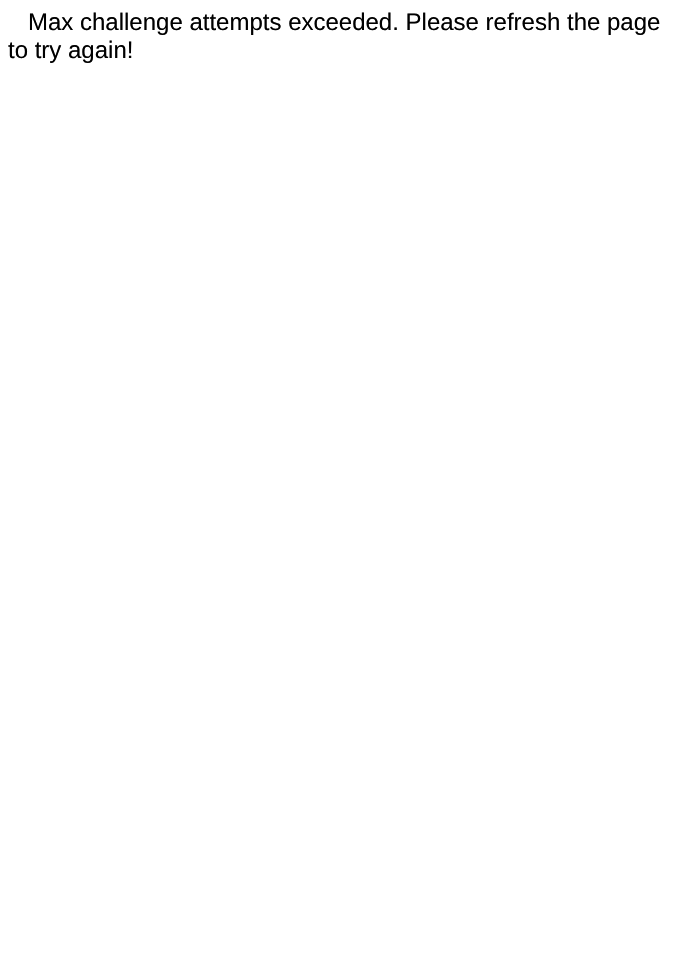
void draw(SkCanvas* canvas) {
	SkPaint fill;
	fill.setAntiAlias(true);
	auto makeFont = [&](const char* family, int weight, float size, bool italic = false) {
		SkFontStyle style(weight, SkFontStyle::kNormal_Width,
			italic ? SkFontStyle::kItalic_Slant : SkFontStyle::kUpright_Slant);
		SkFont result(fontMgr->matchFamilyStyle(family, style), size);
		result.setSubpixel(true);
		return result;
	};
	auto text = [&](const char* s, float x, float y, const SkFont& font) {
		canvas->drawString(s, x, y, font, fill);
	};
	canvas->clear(0xFFFFFFFF);
	auto font1 = makeFont("Liberation Sans", 400, 24);
	fill.setColor(0xFF000000);
	text("Max challenge attempts exceeded. Please refresh the page", 28, 30, font1);
	text("to try again!", 8, 58, font1);
}
